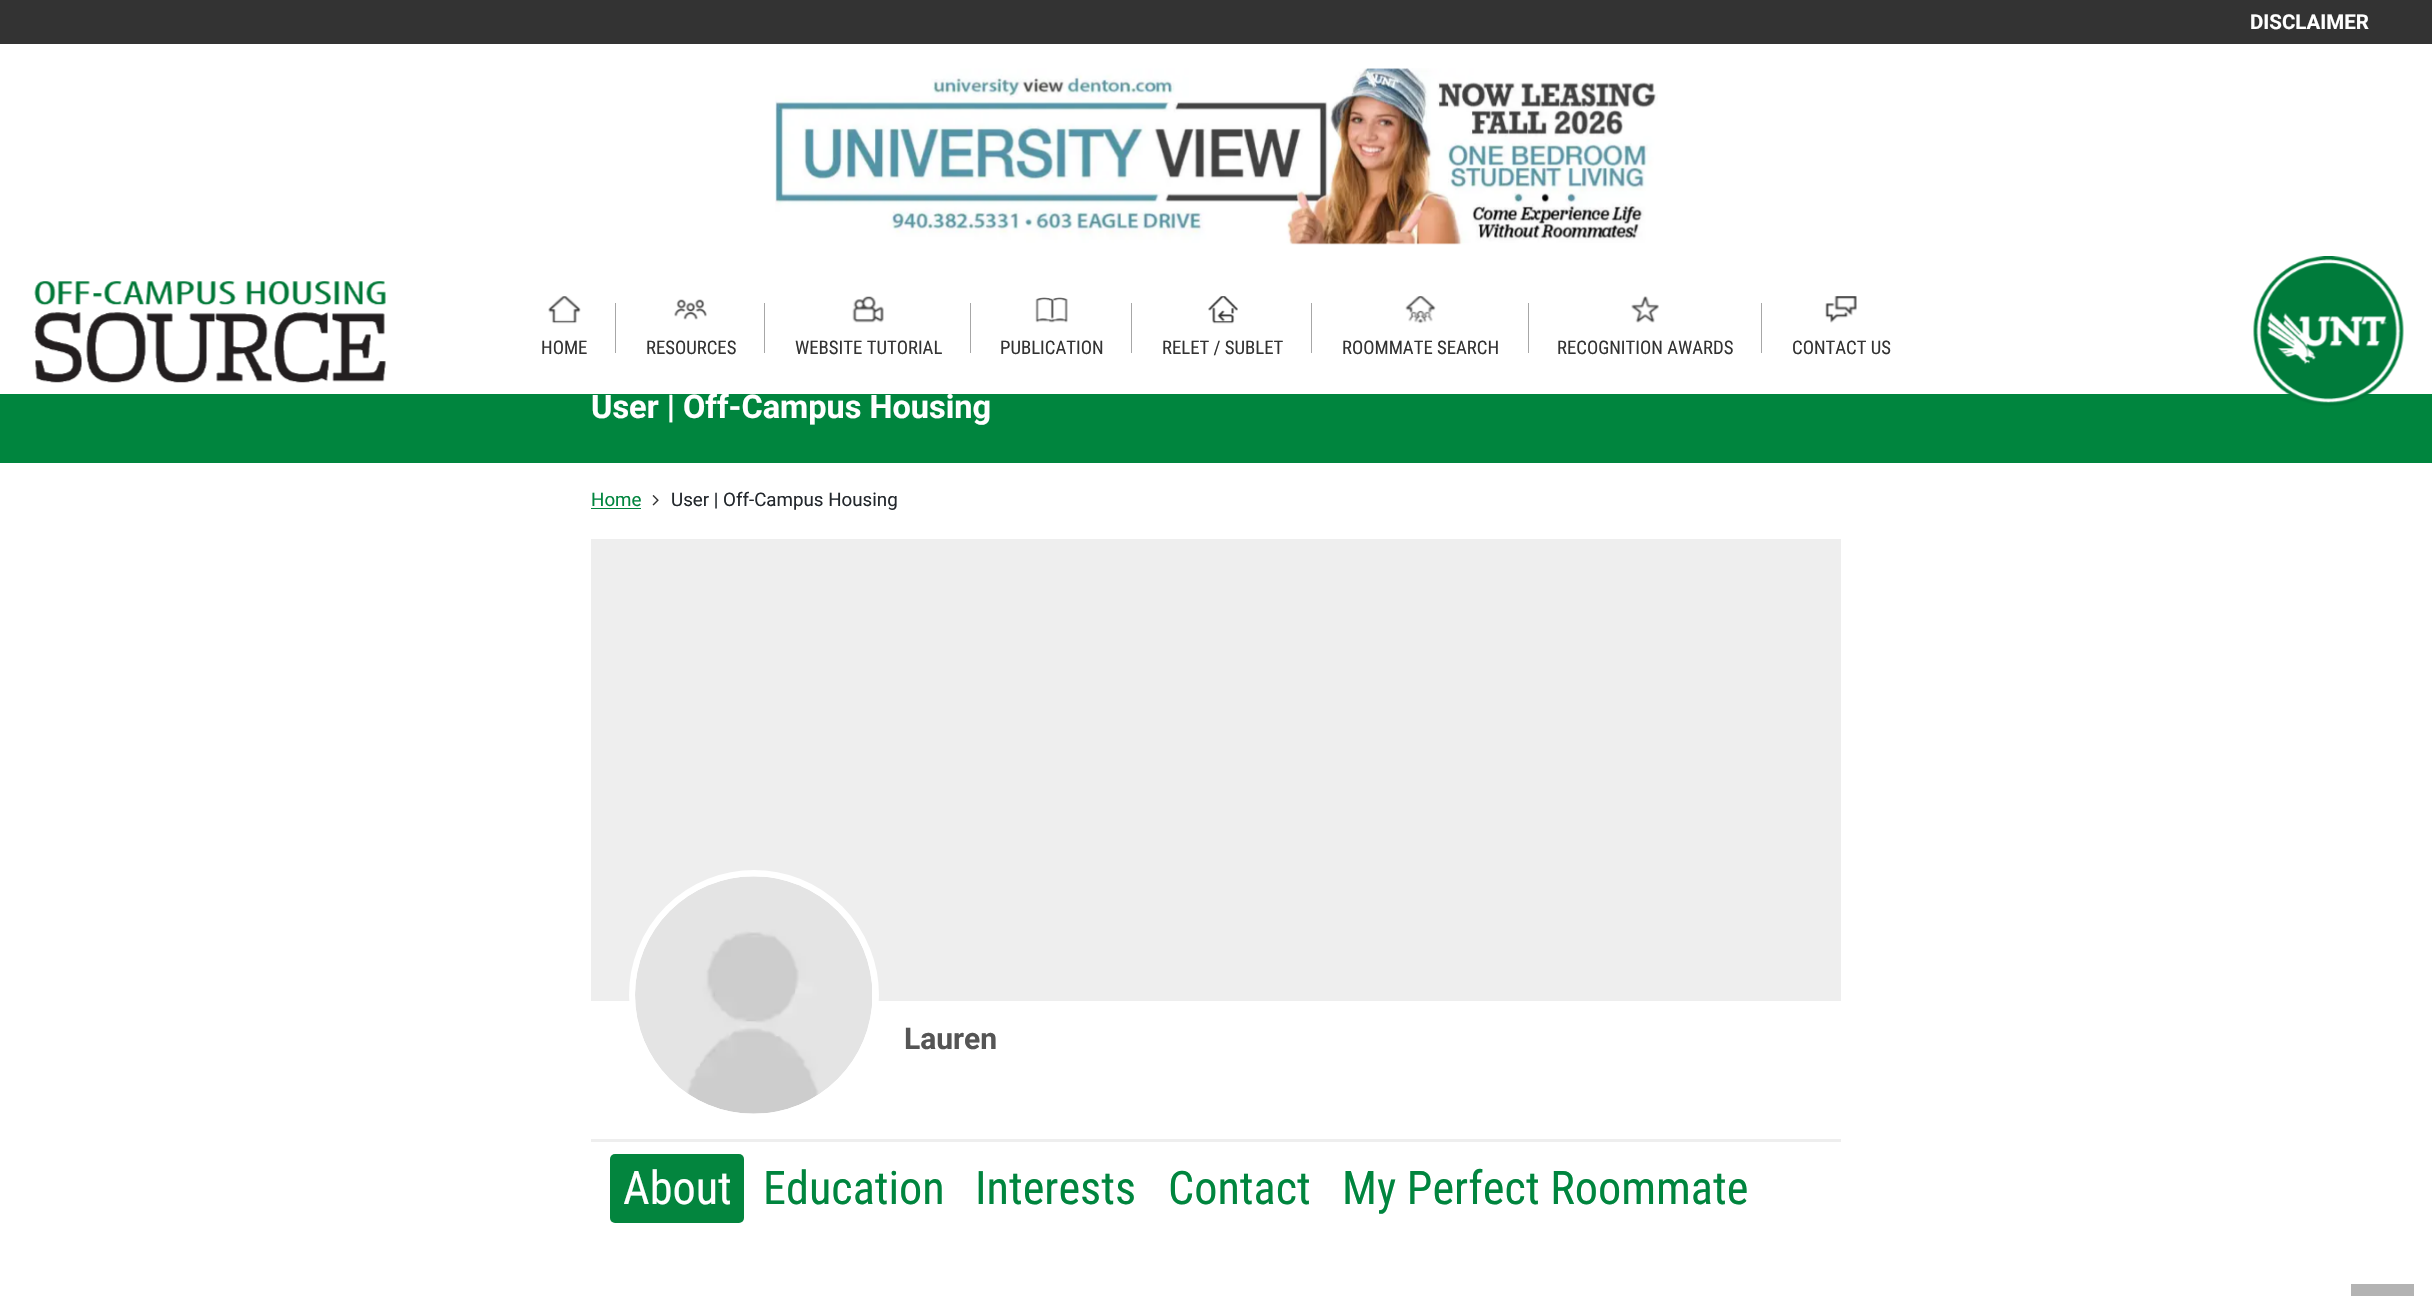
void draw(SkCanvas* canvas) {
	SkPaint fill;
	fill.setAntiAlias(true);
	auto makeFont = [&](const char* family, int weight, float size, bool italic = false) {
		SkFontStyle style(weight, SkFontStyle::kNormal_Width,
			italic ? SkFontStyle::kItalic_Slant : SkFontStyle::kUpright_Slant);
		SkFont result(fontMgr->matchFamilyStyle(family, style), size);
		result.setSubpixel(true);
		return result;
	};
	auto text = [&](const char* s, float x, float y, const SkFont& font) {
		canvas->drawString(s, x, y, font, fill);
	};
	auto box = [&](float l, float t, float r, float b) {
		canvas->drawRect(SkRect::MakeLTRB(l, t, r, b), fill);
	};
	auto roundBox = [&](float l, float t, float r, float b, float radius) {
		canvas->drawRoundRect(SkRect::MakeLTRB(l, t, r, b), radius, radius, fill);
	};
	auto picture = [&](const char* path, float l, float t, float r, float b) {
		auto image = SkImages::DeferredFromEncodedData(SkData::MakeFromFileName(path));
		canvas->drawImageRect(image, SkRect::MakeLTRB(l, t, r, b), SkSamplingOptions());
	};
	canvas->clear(0xFFFFFFFF);
	fill.setColor(0xFF333333);
	box(0, 0, 2432, 44);
	picture("image0.png", 775, 68, 1658, 245);
	picture("image1.png", 34, 281, 386, 383);
	picture("image2.png", 548, 296, 581, 324);
	fill.setColor(0xFFA7A7A7);
	box(615, 303, 616, 353);
	picture("image3.png", 674, 299, 707, 320);
	box(764, 303, 765, 353);
	picture("image4.png", 852, 296, 884, 323);
	box(970, 303, 971, 353);
	picture("image5.png", 1035, 297, 1068, 323);
	box(1131, 303, 1132, 353);
	picture("image6.png", 1208, 296, 1238, 324);
	box(1311, 303, 1312, 353);
	picture("image7.png", 1405, 296, 1436, 324);
	box(1528, 303, 1529, 353);
	picture("image8.png", 1631, 296, 1659, 323);
	box(1761, 303, 1762, 353);
	picture("image9.png", 1825, 296, 1857, 323);
	fill.setColor(0xFF00853E);
	box(0, 394, 2432, 463);
	picture("image10.png", 2253, 256, 2404, 406);
	box(591, 508, 641, 509);
	picture("image11.png", 652, 495, 659, 506);
	fill.setColor(0xFFEEEEEE);
	box(591, 539, 1841, 1001);
	box(591, 1139, 1841, 1142);
	fill.setColor(0xFFFFFFFF);
	canvas->drawCircle(754, 995, 122, fill);
	fill.setStyle(SkPaint::kStroke_Style);
	fill.setStrokeWidth(6);
	canvas->drawCircle(754, 995, 122, fill);
	picture("image12.png", 635, 876, 872, 1114);
	fill.setStyle(SkPaint::kFill_Style);
	fill.setColor(0xFF03853E);
	roundBox(610, 1154, 744, 1223, 5);
	fill.setColor(0xFFB3B3B3);
	box(2351, 1284, 2414, 1296);
	auto font1 = makeFont("Roboto", 700, 20.5f);
	fill.setColor(0xFFFFFFFF);
	text("DISCLAIMER", 2250, 29, font1);
	auto font2 = makeFont("Roboto Condensed", 400, 18.75f);
	fill.setColor(0xFF333333);
	text("HOME", 541, 354, font2);
	text("RESOURCES", 646, 354, font2);
	text("WEBSITE TUTORIAL", 795, 354, font2);
	text("PUBLICATION", 1000, 354, font2);
	text("RELET / SUBLET", 1162, 354, font2);
	text("ROOMMATE SEARCH", 1342, 354, font2);
	text("RECOGNITION AWARDS", 1557, 354, font2);
	text("CONTACT US", 1792, 354, font2);
	auto font3 = makeFont("Roboto", 700, 32.5f);
	fill.setColor(0xFFFFFFFF);
	text("User | Off-Campus Housing", 591, 418, font3);
	auto font4 = makeFont("Roboto", 400, 18.75f);
	fill.setColor(0xFF00853E);
	text("Home", 591, 506, font4);
	fill.setColor(0xFF23282D);
	text("User | Off-Campus Housing", 671, 506, font4);
	auto font5 = makeFont("Roboto", 700, 30);
	fill.setColor(0xFF555555);
	text("Lauren", 904, 1049, font5);
	auto font6 = makeFont("Roboto Condensed", 400, 46.25f);
	fill.setColor(0xFFFFFFFF);
	text("About", 623, 1204, font6);
	fill.setColor(0xFF00853E);
	text("Education", 763, 1204, font6);
	text("Interests", 975, 1204, font6);
	text("Contact", 1168, 1204, font6);
	text("My Perfect Roommate", 1342, 1204, font6);
}
